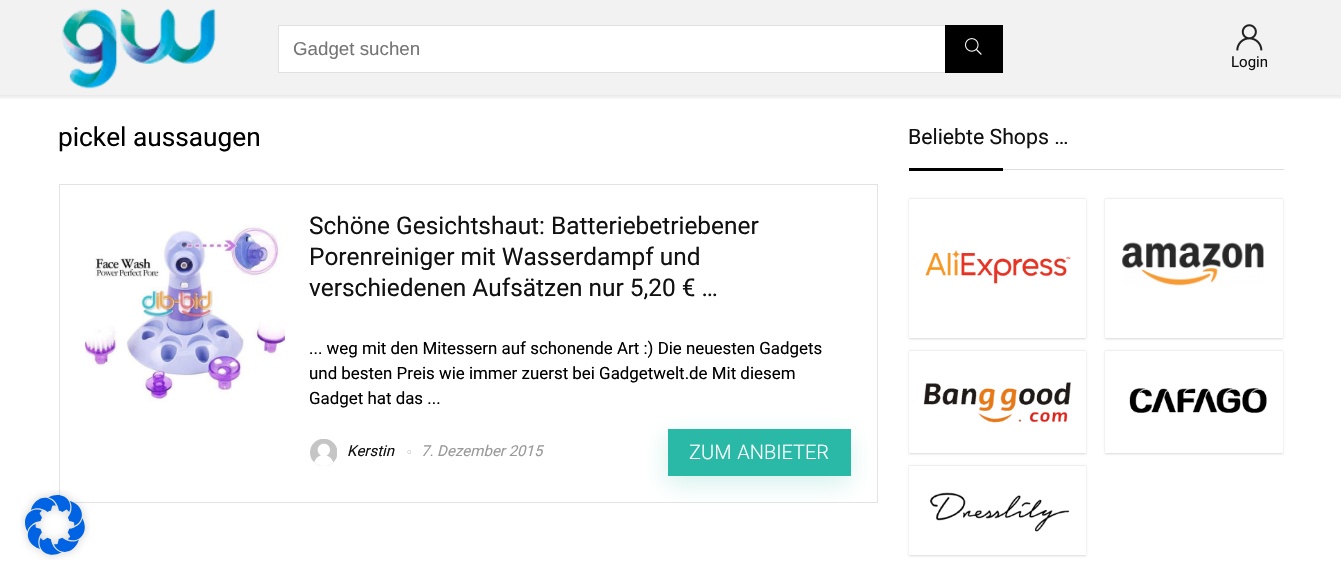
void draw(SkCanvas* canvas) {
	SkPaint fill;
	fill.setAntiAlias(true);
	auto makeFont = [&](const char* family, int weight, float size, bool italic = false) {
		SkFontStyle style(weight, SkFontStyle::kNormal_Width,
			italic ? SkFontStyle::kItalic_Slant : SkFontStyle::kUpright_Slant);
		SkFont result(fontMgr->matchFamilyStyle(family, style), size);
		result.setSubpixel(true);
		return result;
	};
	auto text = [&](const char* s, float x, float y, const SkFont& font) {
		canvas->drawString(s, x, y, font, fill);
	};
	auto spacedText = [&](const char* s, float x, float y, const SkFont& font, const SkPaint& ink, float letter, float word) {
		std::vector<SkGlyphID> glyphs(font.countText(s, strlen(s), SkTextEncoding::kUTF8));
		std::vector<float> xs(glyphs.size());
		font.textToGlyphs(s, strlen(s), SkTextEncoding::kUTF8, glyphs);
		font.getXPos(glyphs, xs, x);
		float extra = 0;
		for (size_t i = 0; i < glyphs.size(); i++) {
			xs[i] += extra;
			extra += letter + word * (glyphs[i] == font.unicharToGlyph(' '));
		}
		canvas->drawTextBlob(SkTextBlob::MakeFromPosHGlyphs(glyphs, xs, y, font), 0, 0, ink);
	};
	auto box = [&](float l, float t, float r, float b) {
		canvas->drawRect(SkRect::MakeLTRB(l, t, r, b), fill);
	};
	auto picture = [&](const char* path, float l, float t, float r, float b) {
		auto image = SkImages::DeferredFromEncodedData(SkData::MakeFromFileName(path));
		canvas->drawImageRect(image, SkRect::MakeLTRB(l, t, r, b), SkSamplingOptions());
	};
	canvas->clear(0xFFFFFFFF);
	fill.setColor(0xFFF2F2F2);
	box(0, 0, 1341, 98);
	picture("image0.png", 61, 8, 216, 89);
	fill.setColor(0xFFFFFFFF);
	box(279, 26, 945, 72);
	fill.setStyle(SkPaint::kStroke_Style);
	fill.setStrokeWidth(1);
	fill.setColor(0xFFE1E1E1);
	canvas->drawRect(SkRect::MakeLTRB(278.5f, 25.5f, 1002.5f, 72.5f), fill);
	fill.setStyle(SkPaint::kFill_Style);
	fill.setColor(0xFF000000);
	box(945, 25, 1003, 73);
	picture("image1.png", 965, 38, 982, 55);
	picture("image2.png", 1236, 24, 1263, 51);
	fill.setStyle(SkPaint::kStroke_Style);
	fill.setColor(0x08000000);
	canvas->drawRect(SkRect::MakeLTRB(-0.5f, 95.5f, 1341.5f, 98.5f), fill);
	fill.setStyle(SkPaint::kFill_Style);
	fill.setColor(0xFFEEEEEE);
	box(0, 96, 1341, 97);
	fill.setStyle(SkPaint::kStroke_Style);
	fill.setColor(0xFFE3E3E3);
	canvas->drawRect(SkRect::MakeLTRB(59.5f, 184.5f, 877.5f, 502.5f), fill);
	picture("image3.png", 85, 224, 285, 402);
	picture("image4.png", 310, 439, 337, 466);
	picture("image5.png", 407, 450, 412, 454);
	fill.setStyle(SkPaint::kFill_Style);
	fill.setColor(0x3329B9A6);
	fill.setMaskFilter(SkMaskFilter::MakeBlur(kNormal_SkBlurStyle, 12));
	canvas->drawRect(SkRect::MakeLTRB(666, 436, 850, 484), fill);
	fill.setMaskFilter(nullptr);
	fill.setColor(0xFF29B9A6);
	box(668, 429, 851, 476);
	fill.setColor(0xFFDDDDDD);
	box(1003, 169, 1284, 170);
	fill.setColor(0xFF000000);
	box(909, 168, 1003, 171);
	fill.setColor(0x26000000);
	fill.setMaskFilter(SkMaskFilter::MakeBlur(kNormal_SkBlurStyle, 1));
	canvas->drawRect(SkRect::MakeLTRB(909, 199, 1086, 339), fill);
	fill.setMaskFilter(nullptr);
	fill.setColor(0xFFFFFFFF);
	box(909, 199, 1086, 338);
	fill.setColor(0xFFEFEFEF);
	box(909, 198, 1086, 199);
	picture("image6.png", 925, 250, 1071, 284);
	fill.setColor(0x26000000);
	fill.setMaskFilter(SkMaskFilter::MakeBlur(kNormal_SkBlurStyle, 1));
	canvas->drawRect(SkRect::MakeLTRB(1105, 199, 1283, 339), fill);
	fill.setMaskFilter(nullptr);
	fill.setColor(0xFFFFFFFF);
	box(1105, 199, 1283, 338);
	fill.setColor(0xFFEFEFEF);
	box(1105, 198, 1283, 199);
	picture("image7.png", 1122, 242, 1264, 286);
	fill.setColor(0x26000000);
	fill.setMaskFilter(SkMaskFilter::MakeBlur(kNormal_SkBlurStyle, 1));
	canvas->drawRect(SkRect::MakeLTRB(909, 351, 1086, 454), fill);
	fill.setMaskFilter(nullptr);
	fill.setColor(0xFFFFFFFF);
	box(909, 351, 1086, 453);
	fill.setColor(0xFFEFEFEF);
	box(909, 350, 1086, 351);
	picture("image8.png", 923, 382, 1071, 423);
	fill.setColor(0x26000000);
	fill.setMaskFilter(SkMaskFilter::MakeBlur(kNormal_SkBlurStyle, 1));
	canvas->drawRect(SkRect::MakeLTRB(1105, 351, 1283, 454), fill);
	fill.setMaskFilter(nullptr);
	fill.setColor(0xFFFFFFFF);
	box(1105, 351, 1283, 453);
	fill.setColor(0xFFEFEFEF);
	box(1105, 350, 1283, 351);
	picture("image9.png", 1129, 388, 1267, 413);
	canvas->save();
	canvas->clipPath(SkPathBuilder(SkPathFillType::kEvenOdd).moveTo(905, 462).lineTo(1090, 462).lineTo(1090, 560).lineTo(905, 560).close().moveTo(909, 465).lineTo(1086, 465).lineTo(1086, 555).lineTo(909, 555).close().detach(), true);
	fill.setColor(0x26000000);
	fill.setMaskFilter(SkMaskFilter::MakeBlur(kNormal_SkBlurStyle, 1));
	canvas->drawRect(SkRect::MakeLTRB(909, 466, 1086, 556), fill);
	fill.setMaskFilter(nullptr);
	canvas->restore();
	fill.setColor(0xFFEFEFEF);
	box(909, 465, 1086, 466);
	picture("image10.png", 929, 492, 1070, 532);
	picture("image11.png", 20, 490, 90, 560);
	auto font1 = makeFont("Liberation Sans", 400, 18.75f);
	fill.setColor(0xFF757575);
	text("Gadget suchen", 293, 55, font1);
	auto font2 = makeFont("Roboto", 400, 15);
	fill.setColor(0xFF111111);
	text("Login", 1231, 67, font2);
	auto font3 = makeFont("Roboto", 400, 26.25f);
	fill.setColor(0xFF000000);
	text("pickel aussaugen", 58, 146, font3);
	auto font4 = makeFont("Roboto", 400, 24.4f);
	fill.setColor(0xFF111111);
	text("Schöne Gesichtshaut: Batteriebetriebener", 309, 234, font4);
	text("Porenreiniger mit Wasserdampf und", 309, 265, font4);
	text("verschiedenen Aufsätzen nur 5,20 € …", 309, 296, font4);
	auto font5 = makeFont("Roboto", 400, 16.9f);
	fill.setColor(0xFF000000);
	text("... weg mit den Mitessern auf schonende Art :) Die neuesten Gadgets", 309, 354, font5);
	text("und besten Preis wie immer zuerst bei Gadgetwelt.de Mit diesem", 309, 379, font5);
	text("Gadget hat das ...", 309, 404, font5);
	auto font6 = makeFont("Roboto", 400, 15, true);
	fill.setColor(0xFF111111);
	text("Kerstin", 347, 456, font6);
	fill.setColor(0xFF999999);
	text("7. Dezember 2015", 421, 456, font6);
	auto font7 = makeFont("Roboto", 300, 20);
	fill.setColor(0xFFFFFFFF);
	spacedText("ZUM ANBIETER", 689, 459, font7, fill, 0, 1);
	auto font8 = makeFont("Roboto", 400, 21.25f);
	fill.setColor(0xFF111111);
	text("Beliebte Shops …", 908, 144, font8);
}
